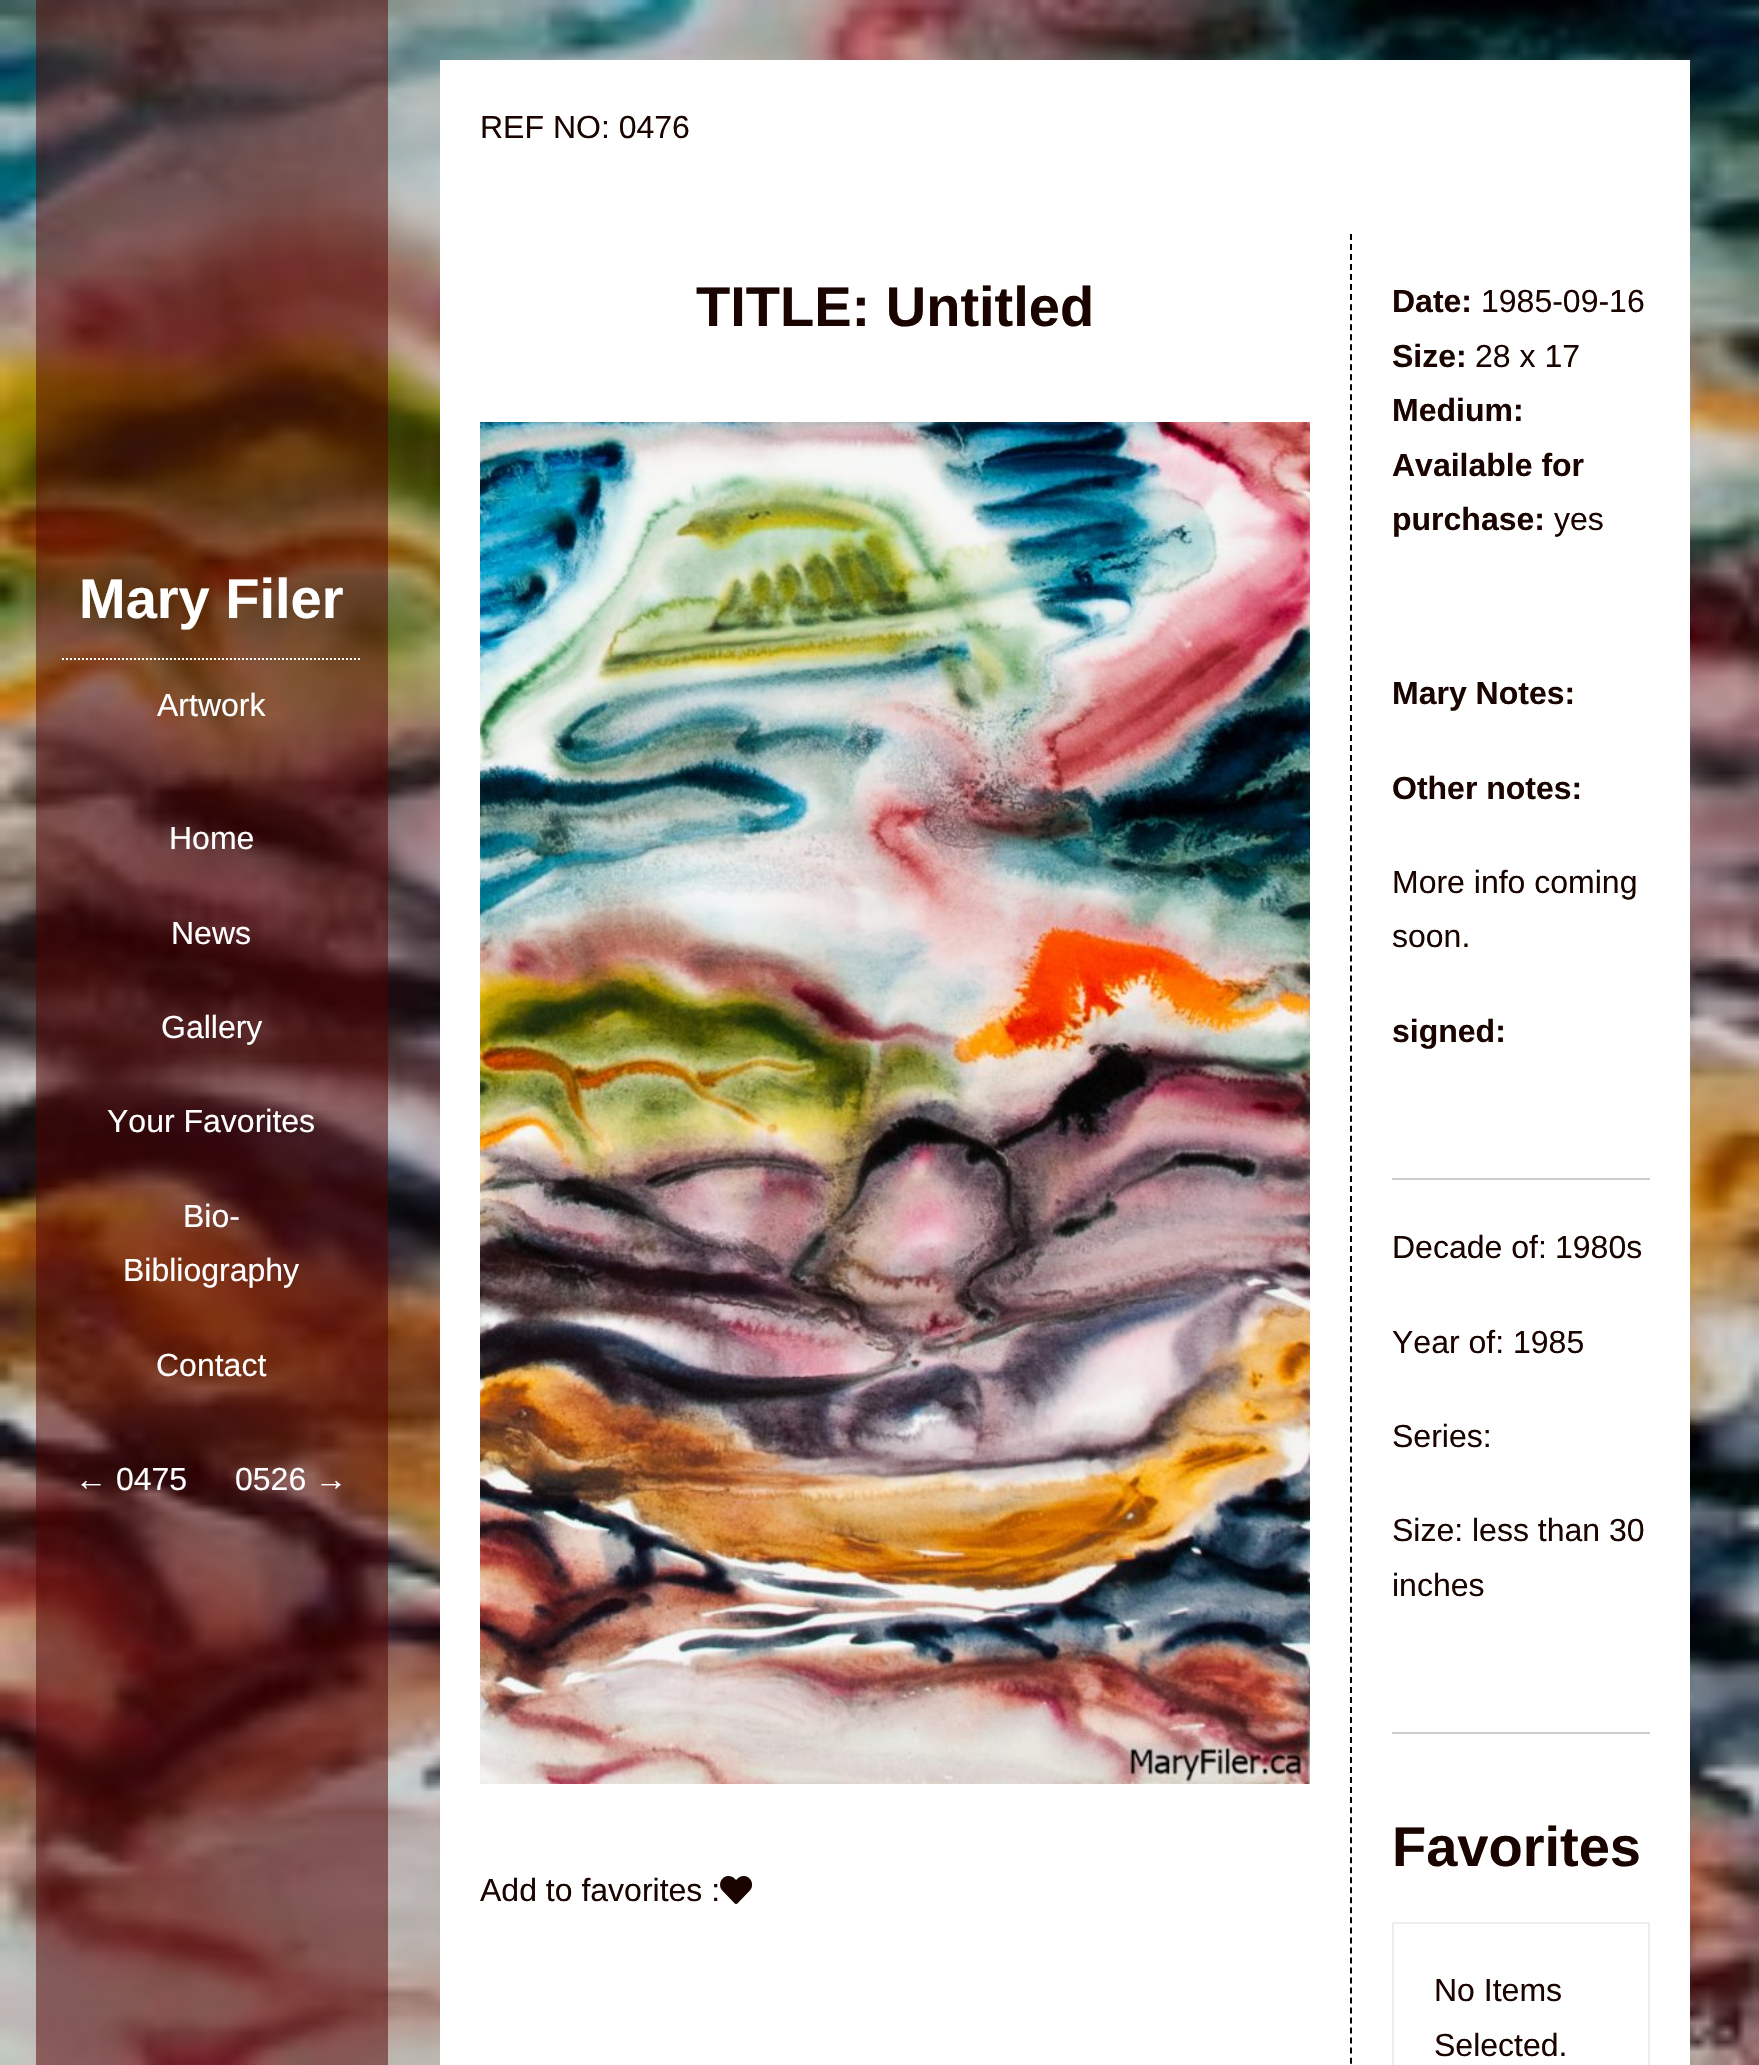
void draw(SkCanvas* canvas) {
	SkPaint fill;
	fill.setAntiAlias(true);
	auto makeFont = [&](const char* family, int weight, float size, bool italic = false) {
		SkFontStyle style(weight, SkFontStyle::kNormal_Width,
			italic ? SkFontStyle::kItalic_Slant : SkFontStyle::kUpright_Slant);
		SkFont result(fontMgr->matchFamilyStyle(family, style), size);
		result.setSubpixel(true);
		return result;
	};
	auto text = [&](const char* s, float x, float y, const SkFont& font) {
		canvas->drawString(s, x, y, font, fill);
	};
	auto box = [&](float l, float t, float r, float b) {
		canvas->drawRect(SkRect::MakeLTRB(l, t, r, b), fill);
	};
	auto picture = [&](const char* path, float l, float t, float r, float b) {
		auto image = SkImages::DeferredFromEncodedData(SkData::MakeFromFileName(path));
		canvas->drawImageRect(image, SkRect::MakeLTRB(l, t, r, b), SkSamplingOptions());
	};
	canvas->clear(0xFFFFFFFF);
	picture("image0.png", 0, 0, 1759, 2065);
	fill.setColor(0x82510000);
	box(36, 0, 388, 2065);
	fill.setStyle(SkPaint::kStroke_Style);
	fill.setStrokeWidth(2);
	fill.setColor(0xFFFFFFFF);
	fill.setPathEffect(SkDashPathEffect::Make({{2, 2}}, 0));
	canvas->drawPath(SkPathBuilder().moveTo(62, 659).lineTo(362, 659).detach(), fill);
	fill.setPathEffect(nullptr);
	fill.setStyle(SkPaint::kFill_Style);
	box(440, 60, 1690, 2065);
	picture("image1.png", 480, 422, 1310, 1784);
	picture("image2.png", 720, 1876, 753, 1904);
	fill.setStyle(SkPaint::kStroke_Style);
	fill.setColor(0xFF000000);
	fill.setPathEffect(SkDashPathEffect::Make({{6, 4.02f}}, 0));
	canvas->drawPath(SkPathBuilder().moveTo(1351, 234).lineTo(1351, 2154).detach(), fill);
	fill.setPathEffect(nullptr);
	fill.setStyle(SkPaint::kFill_Style);
	fill.setColor(0xFFCCCCCC);
	box(1392, 1178, 1650, 1180);
	box(1392, 1732, 1650, 1734);
	fill.setStyle(SkPaint::kStroke_Style);
	fill.setColor(0xFFEDEDED);
	canvas->drawRect(SkRect::MakeLTRB(1393, 1923, 1649, 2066), fill);
	auto font1 = makeFont("Liberation Sans", 700, 56);
	fill.setStyle(SkPaint::kFill_Style);
	fill.setColor(0xFFFFFFFF);
	text("Mary Filer", 79, 618, font1);
	auto font2 = makeFont("Liberation Sans", 400, 32);
	text("Artwork", 157, 716, font2);
	text("Home", 169, 849, font2);
	text("News", 171, 944, font2);
	text("Gallery", 161, 1038, font2);
	text("Your Favorites", 107, 1132, font2);
	text("Bio-", 183, 1227, font2);
	text("Bibliography", 123, 1281, font2);
	text("Contact", 156, 1376, font2);
	text("← 0475", 75, 1490, font2);
	text("0526 →", 235, 1490, font2);
	fill.setColor(0xFF190400);
	text("REF NO: 0476", 480, 138, font2);
	text("TITLE: Untitled", 696, 326, font1);
	text("Add to favorites :", 480, 1901, font2);
	auto font3 = makeFont("Liberation Sans", 700, 32);
	text("Date:", 1392, 312, font3);
	text("1985-09-16", 1481, 312, font2);
	text("Size:", 1392, 367, font3);
	text("28 x 17", 1475, 367, font2);
	text("Medium:", 1392, 421, font3);
	text("Available for", 1392, 476, font3);
	text("purchase:", 1392, 530, font3);
	text("yes", 1554, 530, font2);
	text("Mary Notes:", 1392, 704, font3);
	text("Other notes:", 1392, 799, font3);
	text("More info coming", 1392, 893, font2);
	text("soon.", 1392, 947, font2);
	text("signed:", 1392, 1042, font3);
	text("Decade of:", 1392, 1258, font2);
	text("1980s", 1555, 1258, font2);
	text("Year of:", 1392, 1353, font2);
	text("1985", 1513, 1353, font2);
	text("Series:", 1392, 1447, font2);
	text("Size:", 1392, 1541, font2);
	text("less than 30", 1472, 1541, font2);
	text("inches", 1392, 1596, font2);
	text("Favorites", 1392, 1866, font1);
	text("No Items", 1434, 2001, font2);
	text("Selected.", 1434, 2056, font2);
}
